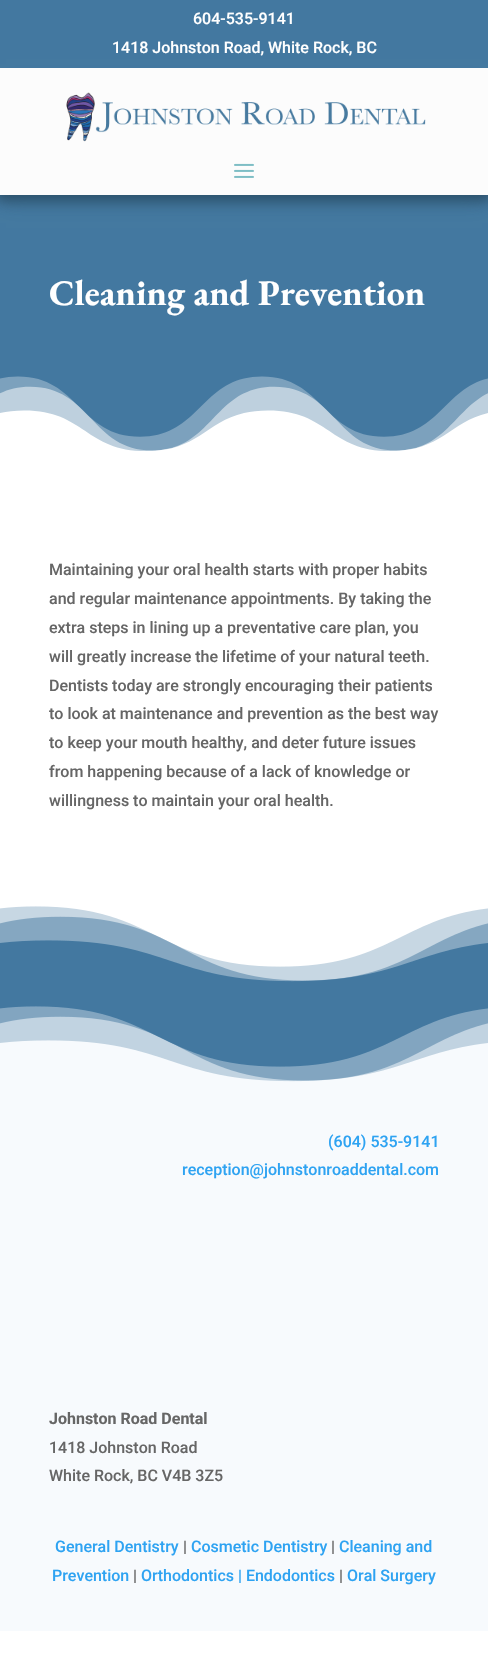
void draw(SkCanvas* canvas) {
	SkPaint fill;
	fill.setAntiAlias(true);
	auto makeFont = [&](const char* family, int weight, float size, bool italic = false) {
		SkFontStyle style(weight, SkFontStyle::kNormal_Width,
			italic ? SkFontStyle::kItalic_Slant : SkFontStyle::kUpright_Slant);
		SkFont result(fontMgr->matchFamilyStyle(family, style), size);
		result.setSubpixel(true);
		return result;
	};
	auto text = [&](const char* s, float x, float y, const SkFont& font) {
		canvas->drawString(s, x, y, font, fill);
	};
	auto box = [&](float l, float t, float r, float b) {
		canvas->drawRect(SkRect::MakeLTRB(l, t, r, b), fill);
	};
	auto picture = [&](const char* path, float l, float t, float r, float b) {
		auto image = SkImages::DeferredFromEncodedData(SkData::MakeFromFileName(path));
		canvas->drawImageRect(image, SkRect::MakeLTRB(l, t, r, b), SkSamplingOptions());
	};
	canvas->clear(0xFFFFFFFF);
	fill.setColor(0xFF4378A0);
	box(0, 195, 488, 451);
	fill.setColor(0x69000000);
	fill.setMaskFilter(SkMaskFilter::MakeBlur(kNormal_SkBlurStyle, 7));
	canvas->drawRect(SkRect::MakeLTRB(-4, -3, 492, 200), fill);
	fill.setMaskFilter(nullptr);
	fill.setColor(0xFF4378A0);
	box(0, 0, 488, 68);
	fill.setColor(0x572C627C);
	fill.setMaskFilter(SkMaskFilter::MakeBlur(kNormal_SkBlurStyle, 9));
	canvas->drawRect(SkRect::MakeLTRB(6, 86, 482, 201), fill);
	fill.setMaskFilter(nullptr);
	fill.setColor(0xFFFCFCFC);
	box(0, 68, 488, 195);
	picture("image0.png", 66, 92, 426, 142);
	picture("image1.png", 234, 163, 254, 178);
	picture("image2.png", 0, 376, 488, 476);
	picture("image3.png", 0, 906, 488, 1006);
	fill.setColor(0xFFF7FAFD);
	box(0, 1006, 488, 1631);
	picture("image4.png", 0, 1006, 488, 1082);
	auto font1 = makeFont("Roboto", 500, 16);
	fill.setColor(0xFFFFFFFF);
	text("604-535-9141", 193, 24, font1);
	text("1418 Johnston Road, White Rock, BC", 112, 53, font1);
	auto font2 = makeFont("EB Garamond", 700, 36);
	text("Cleaning and Prevention", 49, 305, font2);
	fill.setColor(0xFF666666);
	text("Maintaining your oral health starts with proper habits", 49, 575, font1);
	text("and regular maintenance appointments. By taking the", 49, 604, font1);
	text("extra steps in lining up a preventative care plan, you", 49, 633, font1);
	text("will greatly increase the lifetime of your natural teeth.", 49, 662, font1);
	text("Dentists today are strongly encouraging their patients", 49, 691, font1);
	text("to look at maintenance and prevention as the best way", 49, 719, font1);
	text("to keep your mouth healthy, and deter future issues", 49, 748, font1);
	text("from happening because of a lack of knowledge or", 49, 777, font1);
	text("willingness to maintain your oral health.", 49, 806, font1);
	fill.setColor(0xFF2EA3F2);
	text("(604) 535-9141", 328, 1147, font1);
	text("reception@johnstonroaddental.com", 182, 1175, font1);
	auto font3 = makeFont("Roboto", 700, 16);
	fill.setColor(0xFF666666);
	text("Johnston Road Dental", 49, 1424, font3);
	text("1418 Johnston Road", 49, 1453, font1);
	text("White Rock, BC V4B 3Z5", 49, 1481, font1);
	fill.setColor(0xFF2EA3F2);
	text("General Dentistry", 55, 1552, font1);
	fill.setColor(0xFF666666);
	text("|", 183, 1552, font1);
	fill.setColor(0xFF2EA3F2);
	text("Cosmetic Dentistry", 191, 1552, font1);
	fill.setColor(0xFF666666);
	text("|", 331, 1552, font1);
	fill.setColor(0xFF2EA3F2);
	text("Cleaning and", 339, 1552, font1);
	text("Prevention", 52, 1581, font1);
	fill.setColor(0xFF666666);
	text("|", 133, 1581, font1);
	fill.setColor(0xFF2EA3F2);
	text("Orthodontics | Endodontics", 141, 1581, font1);
	fill.setColor(0xFF666666);
	text("|", 339, 1581, font1);
	fill.setColor(0xFF2EA3F2);
	text("Oral Surgery", 347, 1581, font1);
}
